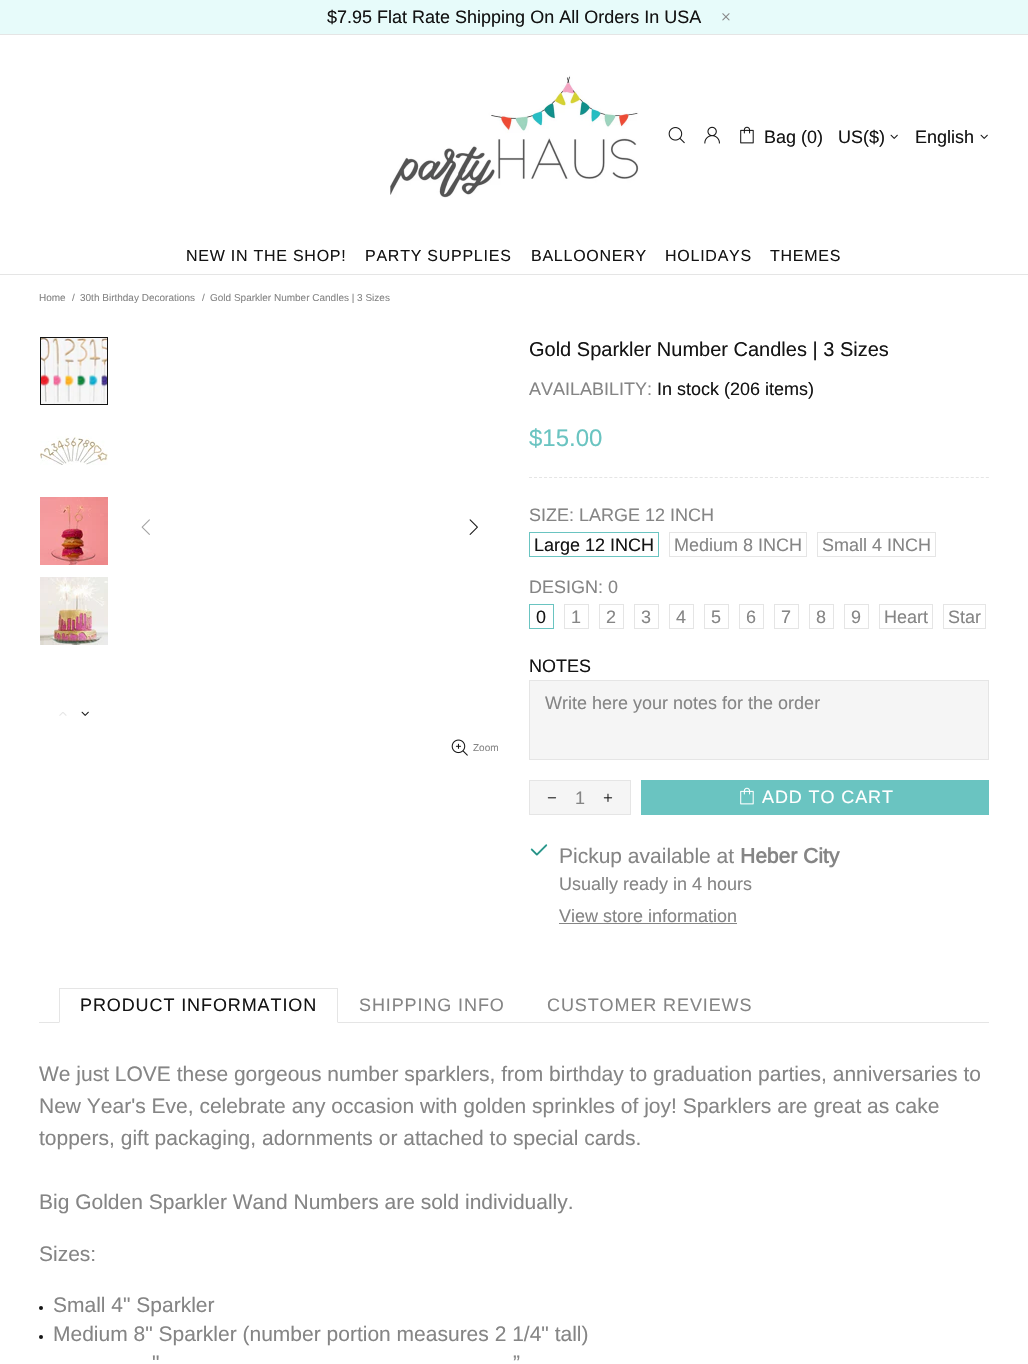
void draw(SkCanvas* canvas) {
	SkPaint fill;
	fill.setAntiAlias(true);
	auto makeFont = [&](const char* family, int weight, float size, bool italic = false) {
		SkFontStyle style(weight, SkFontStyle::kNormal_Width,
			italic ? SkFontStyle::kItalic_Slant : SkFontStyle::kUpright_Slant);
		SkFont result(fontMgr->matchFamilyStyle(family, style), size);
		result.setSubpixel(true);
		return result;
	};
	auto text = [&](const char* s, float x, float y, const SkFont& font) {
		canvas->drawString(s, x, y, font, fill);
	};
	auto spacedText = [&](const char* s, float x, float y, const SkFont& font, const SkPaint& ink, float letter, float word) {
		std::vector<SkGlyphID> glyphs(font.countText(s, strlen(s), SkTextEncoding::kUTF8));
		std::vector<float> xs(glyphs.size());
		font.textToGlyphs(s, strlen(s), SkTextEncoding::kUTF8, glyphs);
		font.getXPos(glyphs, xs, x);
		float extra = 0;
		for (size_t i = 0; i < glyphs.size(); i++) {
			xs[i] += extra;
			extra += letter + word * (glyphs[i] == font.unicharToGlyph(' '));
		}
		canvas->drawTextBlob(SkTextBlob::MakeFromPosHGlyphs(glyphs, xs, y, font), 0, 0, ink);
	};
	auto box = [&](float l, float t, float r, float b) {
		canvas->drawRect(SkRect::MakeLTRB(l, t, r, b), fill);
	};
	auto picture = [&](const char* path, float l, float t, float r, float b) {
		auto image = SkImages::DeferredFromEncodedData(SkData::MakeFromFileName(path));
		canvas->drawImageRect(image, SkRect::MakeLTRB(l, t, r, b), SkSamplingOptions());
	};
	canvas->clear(0xFFFFFFFF);
	fill.setColor(0xFFE7FBFA);
	box(0, 0, 1028, 34);
	fill.setColor(0xFFE5E5E5);
	box(0, 34, 1028, 35);
	picture("image0.png", 722, 13, 730, 21);
	picture("image1.png", 390, 75, 639, 198);
	picture("image2.png", 668, 127, 685, 144);
	picture("image3.png", 704, 126, 720, 144);
	picture("image4.png", 740, 126, 754, 144);
	picture("image5.png", 890, 134, 898, 139);
	picture("image5.png", 980, 134, 988, 139);
	box(0, 274, 1028, 275);
	picture("image6.png", 41, 338, 107, 404);
	fill.setStyle(SkPaint::kStroke_Style);
	fill.setStrokeWidth(1);
	fill.setColor(0xFF141414);
	canvas->drawRect(SkRect::MakeLTRB(40.5f, 337.5f, 107.5f, 404.5f), fill);
	picture("image7.png", 40, 436, 108, 465);
	picture("image8.png", 40, 497, 108, 565);
	picture("image9.png", 40, 577, 108, 645);
	picture("image10.png", 59, 712, 67, 716);
	picture("image5.png", 81, 711, 89, 716);
	picture("image11.png", 141, 519, 150, 535);
	picture("image12.png", 469, 519, 478, 535);
	picture("image13.png", 451, 739, 468, 756);
	fill.setColor(0xFFE5E5E5);
	fill.setPathEffect(SkDashPathEffect::Make({{3, 2.02f}}, 0));
	canvas->drawPath(SkPathBuilder().moveTo(529, 477.5f).lineTo(989, 477.5f).detach(), fill);
	fill.setPathEffect(nullptr);
	fill.setColor(0xFF6AC4C1);
	canvas->drawRect(SkRect::MakeLTRB(529.5f, 532.5f, 658.5f, 556.5f), fill);
	fill.setColor(0xFFE5E5E5);
	canvas->drawRect(SkRect::MakeLTRB(669.5f, 532.5f, 806.5f, 556.5f), fill);
	canvas->drawRect(SkRect::MakeLTRB(817.5f, 532.5f, 935.5f, 556.5f), fill);
	fill.setColor(0xFF6AC4C1);
	canvas->drawRect(SkRect::MakeLTRB(529.5f, 604.5f, 553.5f, 628.5f), fill);
	fill.setColor(0xFFE5E5E5);
	canvas->drawRect(SkRect::MakeLTRB(564.5f, 604.5f, 588.5f, 628.5f), fill);
	canvas->drawRect(SkRect::MakeLTRB(599.5f, 604.5f, 623.5f, 628.5f), fill);
	canvas->drawRect(SkRect::MakeLTRB(634.5f, 604.5f, 658.5f, 628.5f), fill);
	canvas->drawRect(SkRect::MakeLTRB(669.5f, 604.5f, 693.5f, 628.5f), fill);
	canvas->drawRect(SkRect::MakeLTRB(704.5f, 604.5f, 728.5f, 628.5f), fill);
	canvas->drawRect(SkRect::MakeLTRB(739.5f, 604.5f, 763.5f, 628.5f), fill);
	canvas->drawRect(SkRect::MakeLTRB(774.5f, 604.5f, 798.5f, 628.5f), fill);
	canvas->drawRect(SkRect::MakeLTRB(809.5f, 604.5f, 833.5f, 628.5f), fill);
	canvas->drawRect(SkRect::MakeLTRB(844.5f, 604.5f, 868.5f, 628.5f), fill);
	canvas->drawRect(SkRect::MakeLTRB(879.5f, 604.5f, 932.5f, 628.5f), fill);
	canvas->drawRect(SkRect::MakeLTRB(943.5f, 604.5f, 985.5f, 628.5f), fill);
	fill.setStyle(SkPaint::kFill_Style);
	fill.setColor(0xFFF5F5F5);
	canvas->drawRect(SkRect::MakeLTRB(529.5f, 680.5f, 988.5f, 759.5f), fill);
	fill.setStyle(SkPaint::kStroke_Style);
	fill.setColor(0xFFE5E5E5);
	canvas->drawRect(SkRect::MakeLTRB(529.5f, 680.5f, 988.5f, 759.5f), fill);
	fill.setStyle(SkPaint::kFill_Style);
	fill.setColor(0xFFF5F5F5);
	canvas->drawRect(SkRect::MakeLTRB(529.5f, 780.5f, 630.5f, 814.5f), fill);
	fill.setStyle(SkPaint::kStroke_Style);
	fill.setColor(0xFFE5E5E5);
	canvas->drawRect(SkRect::MakeLTRB(529.5f, 780.5f, 630.5f, 814.5f), fill);
	picture("image14.png", 547, 797, 557, 799);
	picture("image15.png", 603, 793, 613, 802);
	fill.setStyle(SkPaint::kFill_Style);
	fill.setColor(0xFF6AC4C1);
	box(641, 780, 989, 815);
	picture("image16.png", 740, 787, 754, 805);
	picture("image17.png", 530, 844, 548, 856);
	fill.setColor(0xFF858585);
	box(559, 923, 737, 924);
	fill.setColor(0xFFE5E5E5);
	box(39, 1022, 989, 1023);
	fill.setColor(0xFFFFFFFF);
	box(59, 1022, 338, 1023);
	fill.setColor(0xFFE5E5E5);
	box(59, 988, 338, 989);
	canvas->drawPath(SkPathBuilder().moveTo(338, 988).lineTo(338, 1023).lineTo(337, 1022).lineTo(337, 989).close().detach(), fill);
	canvas->drawPath(SkPathBuilder().moveTo(59, 1023).lineTo(59, 988).lineTo(60, 989).lineTo(60, 1022).close().detach(), fill);
	fill.setColor(0xFF141414);
	canvas->drawCircle(41, 1308, 2, fill);
	canvas->drawCircle(41, 1337, 2, fill);
	auto font1 = makeFont("Arimo", 400, 18);
	text("$7.95 Flat Rate Shipping On All Orders In USA", 327, 23, font1);
	text("Bag (0)", 764, 143, font1);
	text("US($)", 838, 143, font1);
	text("English", 915, 143, font1);
	auto font2 = makeFont("Arimo", 400, 16);
	spacedText("NEW IN THE SHOP!", 186, 261, font2, fill, 0.75f, 0);
	spacedText("PARTY SUPPLIES", 365, 261, font2, fill, 0.75f, 0);
	spacedText("BALLOONERY", 531, 261, font2, fill, 0.75f, 0);
	spacedText("HOLIDAYS", 665, 261, font2, fill, 0.75f, 0);
	spacedText("THEMES", 770, 261, font2, fill, 0.75f, 0);
	auto font3 = makeFont("Arimo", 400, 10);
	fill.setColor(0xFF858585);
	text("Home", 39, 301, font3);
	text("/", 72, 301, font3);
	text("30th Birthday Decorations", 80, 301, font3);
	text("/", 202, 301, font3);
	text("Gold Sparkler Number Candles | 3 Sizes", 210, 301, font3);
	text("Zoom", 473, 751, font3);
	auto font4 = makeFont("Arimo", 400, 20);
	fill.setColor(0xFF141414);
	text("Gold Sparkler Number Candles | 3 Sizes", 529, 356, font4);
	fill.setColor(0xFF858585);
	text("AVAILABILITY:", 529, 395, font1);
	fill.setColor(0xFF141414);
	text("In stock (206 items)", 657, 395, font1);
	auto font5 = makeFont("Arimo", 400, 24);
	fill.setColor(0xFF6AC4C1);
	text("$15.00", 529, 446, font5);
	fill.setColor(0xFF858585);
	text("SIZE: LARGE 12 INCH", 529, 521, font1);
	fill.setColor(0xFF141414);
	text("Large 12 INCH", 534, 551, font1);
	fill.setColor(0xFF858585);
	text("Medium 8 INCH", 674, 551, font1);
	text("Small 4 INCH", 822, 551, font1);
	text("DESIGN: 0", 529, 593, font1);
	fill.setColor(0xFF141414);
	text("0", 536, 623, font1);
	fill.setColor(0xFF858585);
	text("1", 571, 623, font1);
	text("2", 606, 623, font1);
	text("3", 641, 623, font1);
	text("4", 676, 623, font1);
	text("5", 711, 623, font1);
	text("6", 746, 623, font1);
	text("7", 781, 623, font1);
	text("8", 816, 623, font1);
	text("9", 851, 623, font1);
	text("Heart", 884, 623, font1);
	text("Star", 948, 623, font1);
	fill.setColor(0xFF141414);
	text("NOTES", 529, 672, font1);
	fill.setColor(0xFF858585);
	text("Write here your notes for the order", 545, 709, font1);
	text("1", 575, 804, font1);
	fill.setColor(0xFFFFFFFF);
	spacedText("ADD TO CART", 762, 803, font1, fill, 0.9f, 0);
	auto font6 = makeFont("Arimo", 400, 21);
	fill.setColor(0xFF858585);
	text("Pickup available at", 559, 863, font6);
	auto font7 = makeFont("Arimo", 700, 21);
	text("Heber City", 740, 863, font7);
	text("Usually ready in 4 hours", 559, 890, font1);
	text("View store information", 559, 922, font1);
	fill.setColor(0xFF141414);
	spacedText("PRODUCT INFORMATION", 80, 1011, font1, fill, 0.9f, 0);
	fill.setColor(0xFF858585);
	spacedText("SHIPPING INFO", 359, 1011, font1, fill, 0.9f, 0);
	spacedText("CUSTOMER REVIEWS", 547, 1011, font1, fill, 0.9f, 0);
	text("We just LOVE these gorgeous number sparklers, from birthday to graduation parties, anniversaries to", 39, 1081, font6);
	text("New Year's Eve, celebrate any occasion with golden sprinkles of joy! Sparklers are great as cake", 39, 1113, font6);
	text("toppers, gift packaging, adornments or attached to special cards.", 39, 1145, font6);
	text("Big Golden Sparkler Wand Numbers are sold individually.", 39, 1209, font6);
	text("Sizes:", 39, 1261, font6);
	text("Small 4\" Sparkler", 53, 1312, font6);
	text("Medium 8\" Sparkler (number portion measures 2 1/4\" tall)", 53, 1341, font6);
	text("\"", 152, 1370, font6);
	text("”", 513, 1370, font6);
}
